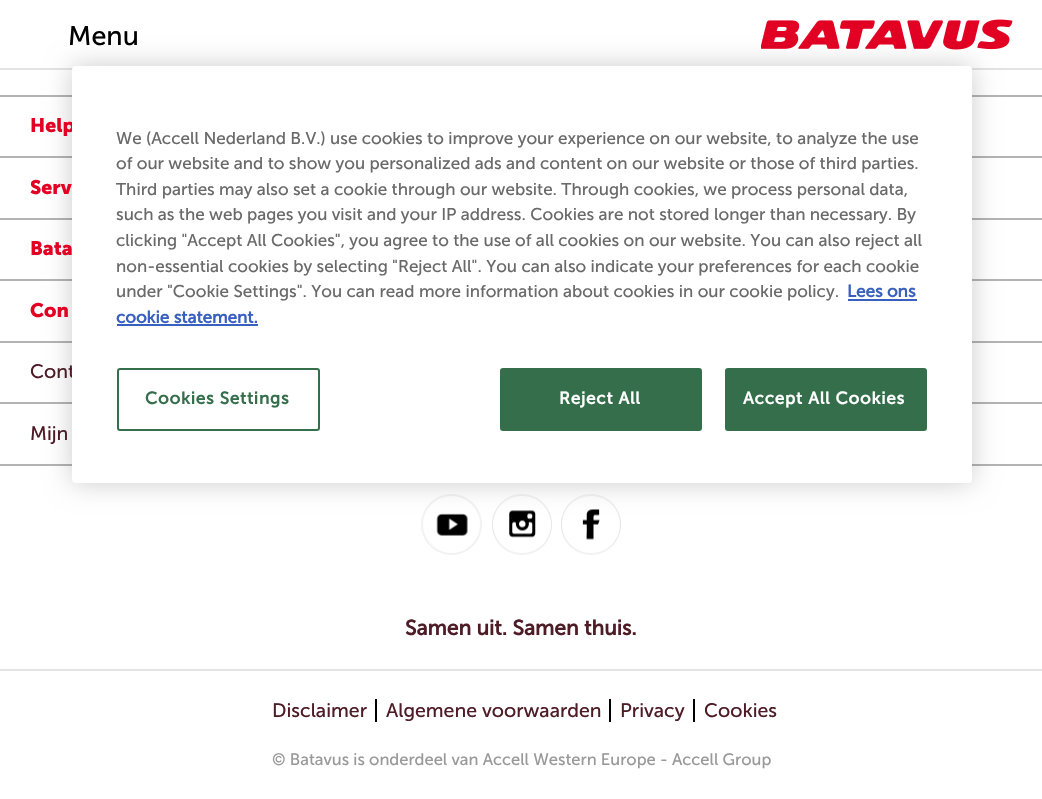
void draw(SkCanvas* canvas) {
	SkPaint fill;
	fill.setAntiAlias(true);
	auto makeFont = [&](const char* family, int weight, float size, bool italic = false) {
		SkFontStyle style(weight, SkFontStyle::kNormal_Width,
			italic ? SkFontStyle::kItalic_Slant : SkFontStyle::kUpright_Slant);
		SkFont result(fontMgr->matchFamilyStyle(family, style), size);
		result.setSubpixel(true);
		return result;
	};
	auto text = [&](const char* s, float x, float y, const SkFont& font) {
		canvas->drawString(s, x, y, font, fill);
	};
	auto spacedText = [&](const char* s, float x, float y, const SkFont& font, const SkPaint& ink, float letter, float word) {
		std::vector<SkGlyphID> glyphs(font.countText(s, strlen(s), SkTextEncoding::kUTF8));
		std::vector<float> xs(glyphs.size());
		font.textToGlyphs(s, strlen(s), SkTextEncoding::kUTF8, glyphs);
		font.getXPos(glyphs, xs, x);
		float extra = 0;
		for (size_t i = 0; i < glyphs.size(); i++) {
			xs[i] += extra;
			extra += letter + word * (glyphs[i] == font.unicharToGlyph(' '));
		}
		canvas->drawTextBlob(SkTextBlob::MakeFromPosHGlyphs(glyphs, xs, y, font), 0, 0, ink);
	};
	auto box = [&](float l, float t, float r, float b) {
		canvas->drawRect(SkRect::MakeLTRB(l, t, r, b), fill);
	};
	auto roundBox = [&](float l, float t, float r, float b, float radius) {
		canvas->drawRoundRect(SkRect::MakeLTRB(l, t, r, b), radius, radius, fill);
	};
	auto picture = [&](const char* path, float l, float t, float r, float b) {
		auto image = SkImages::DeferredFromEncodedData(SkData::MakeFromFileName(path));
		canvas->drawImageRect(image, SkRect::MakeLTRB(l, t, r, b), SkSamplingOptions());
	};
	canvas->clear(0xFFFFFFFF);
	fill.setColor(0xFFE3E3E3);
	box(0, 68, 1042, 70);
	picture("image0.png", 761, 19, 1013, 50);
	fill.setColor(0xFFB3B3B3);
	box(0, 95, 1042, 97);
	box(0, 156, 1042, 158);
	box(0, 218, 1042, 220);
	box(0, 279, 1042, 281);
	box(0, 341, 1042, 343);
	box(0, 402, 1042, 404);
	box(0, 464, 1042, 466);
	picture("image1.png", 421, 494, 482, 555);
	picture("image2.png", 492, 494, 552, 555);
	picture("image3.png", 561, 494, 621, 555);
	fill.setColor(0xFFE4E4E4);
	box(0, 669, 1042, 671);
	fill.setColor(0xFF000000);
	box(375, 699, 377, 722);
	box(609, 699, 611, 722);
	box(693, 699, 695, 722);
	fill.setColor(0x33000000);
	fill.setMaskFilter(SkMaskFilter::MakeBlur(kNormal_SkBlurStyle, 13.5f));
	canvas->drawRoundRect(SkRect::MakeLTRB(72, 66, 972, 483), 4, 4, fill);
	fill.setMaskFilter(nullptr);
	auto font1 = makeFont("Museo Sans", 400, 27);
	fill.setColor(0xFF000000);
	text("Menu", 68, 45, font1);
	auto font2 = makeFont("Museo Sans", 700, 19.5f);
	fill.setColor(0xFFE20023);
	text("Help", 30, 132, font2);
	text("Serv", 30, 194, font2);
	text("Bata", 30, 255, font2);
	text("Con", 30, 317, font2);
	auto font3 = makeFont("Museo Sans", 400, 19.5f);
	fill.setColor(0xFF4E1C26);
	text("Cont", 30, 378, font3);
	text("Mijn", 30, 440, font3);
	auto font4 = makeFont("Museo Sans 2", 700, 21);
	text("Samen uit. Samen thuis.", 405, 635, font4);
	text("Disclaimer", 272, 717, font3);
	text("Algemene voorwaarden", 386, 717, font3);
	text("Privacy", 620, 717, font3);
	text("Cookies", 704, 717, font3);
	auto font5 = makeFont("Museo Sans", 400, 16.5f);
	fill.setColor(0xFF999999);
	text("© Batavus is onderdeel van Accell Western Europe - Accell Group", 272, 765, font5);
	fill.setColor(0xFFFFFFFF);
	roundBox(72, 66, 972, 483, 4);
	auto font6 = makeFont("Museo Sans", 400, 17.05f);
	fill.setColor(0xFF696969);
	text("We (Accell Nederland B.V.) use cookies to improve your experience on our website, to analyze the use", 116, 144, font6);
	text("of our website and to show you personalized ads and content on our website or those of third parties.", 116, 169, font6);
	text("Third parties may also set a cookie through our website. Through cookies, we process personal data,", 116, 195, font6);
	text("such as the web pages you visit and your IP address. Cookies are not stored longer than necessary. By", 116, 220, font6);
	text("clicking \"Accept All Cookies\", you agree to the use of all cookies on our website. You can also reject all", 116, 246, font6);
	text("non-essential cookies by selecting \"Reject All\". You can also indicate your preferences for each cookie", 116, 272, font6);
	text("under \"Cookie Settings\". You can read more information about cookies in our cookie policy.", 116, 297, font6);
	auto font7 = makeFont("Museo Sans 2", 700, 17.05f);
	fill.setColor(0xFF3860BE);
	text("Lees ons", 847, 297, font7);
	box(848, 299, 917, 301);
	text("cookie statement.", 116, 323, font7);
	box(117, 324, 258, 326);
	fill.setStyle(SkPaint::kStroke_Style);
	fill.setStrokeWidth(2);
	fill.setColor(0xFF346E4A);
	canvas->drawRoundRect(SkRect::MakeLTRB(118, 369, 319, 430), 2, 2, fill);
	fill.setStyle(SkPaint::kFill_Style);
	spacedText("Cookies Settings", 145, 404, font7, fill, 0.8f, 0);
	canvas->drawRoundRect(SkRect::MakeLTRB(501, 369, 701, 430), 2, 2, fill);
	fill.setStyle(SkPaint::kStroke_Style);
	canvas->drawRoundRect(SkRect::MakeLTRB(501, 369, 701, 430), 2, 2, fill);
	fill.setStyle(SkPaint::kFill_Style);
	fill.setColor(0xFFFFFFFF);
	spacedText("Reject All", 559, 404, font7, fill, 0.8f, 0);
	fill.setColor(0xFF346E4A);
	canvas->drawRoundRect(SkRect::MakeLTRB(726, 369, 926, 430), 2, 2, fill);
	fill.setStyle(SkPaint::kStroke_Style);
	canvas->drawRoundRect(SkRect::MakeLTRB(726, 369, 926, 430), 2, 2, fill);
	fill.setStyle(SkPaint::kFill_Style);
	fill.setColor(0xFFFFFFFF);
	spacedText("Accept All Cookies", 743, 404, font7, fill, 0.8f, 0);
}
